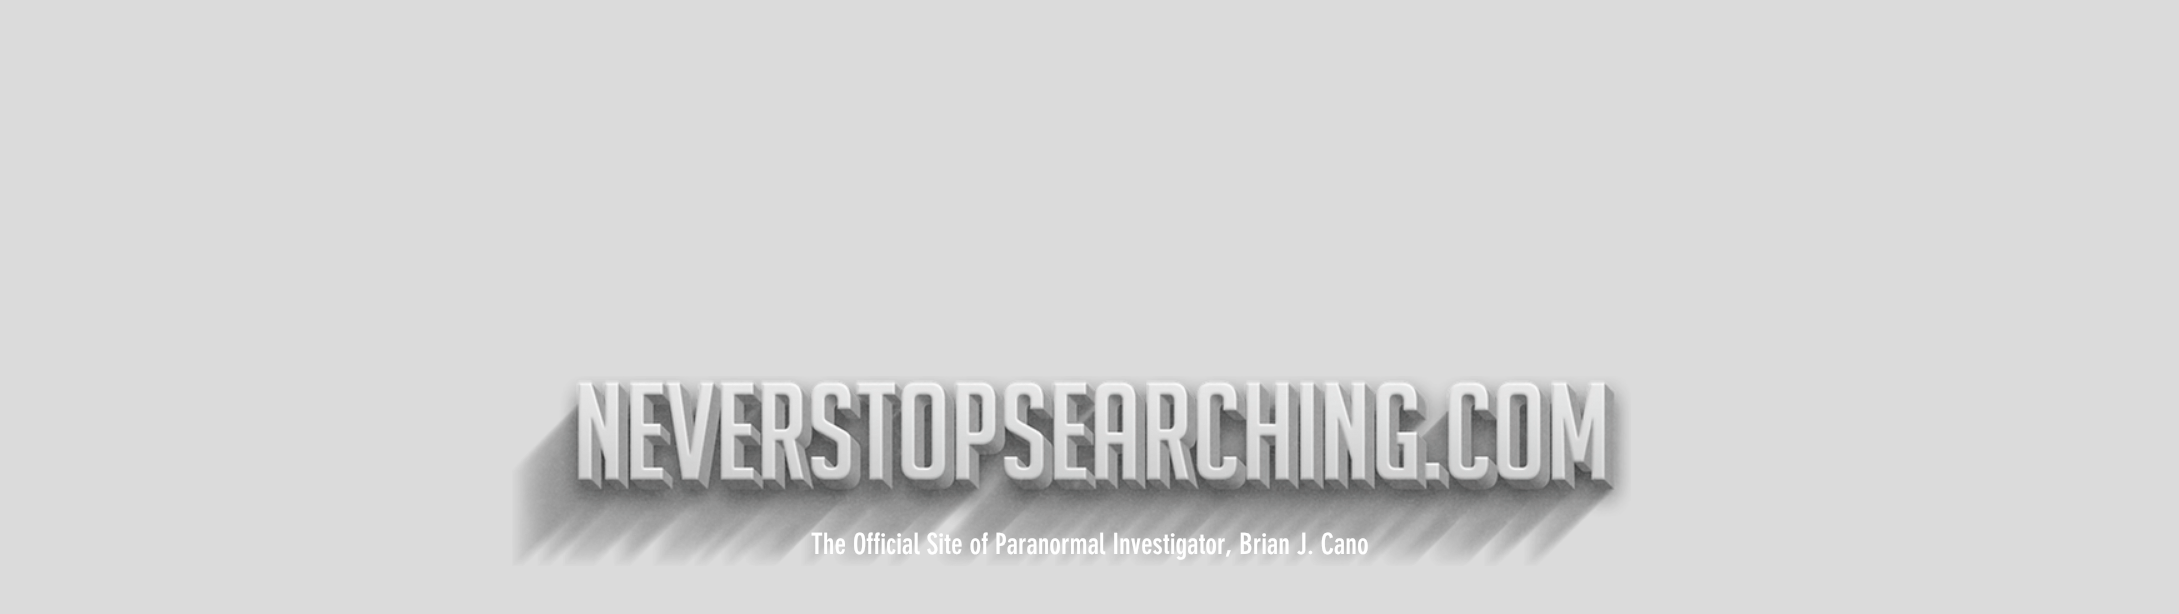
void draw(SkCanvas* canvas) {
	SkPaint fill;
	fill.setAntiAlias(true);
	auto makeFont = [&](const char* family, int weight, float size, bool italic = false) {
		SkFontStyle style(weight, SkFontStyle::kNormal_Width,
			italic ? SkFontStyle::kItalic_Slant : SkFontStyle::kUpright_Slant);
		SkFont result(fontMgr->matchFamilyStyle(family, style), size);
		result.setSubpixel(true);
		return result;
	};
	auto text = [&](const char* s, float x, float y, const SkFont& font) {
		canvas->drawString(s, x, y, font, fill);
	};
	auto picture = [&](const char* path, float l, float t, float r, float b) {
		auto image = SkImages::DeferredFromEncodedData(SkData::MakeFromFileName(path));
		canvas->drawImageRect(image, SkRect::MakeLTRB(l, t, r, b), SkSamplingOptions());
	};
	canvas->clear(0xFFDBDBDB);
	picture("image0.png", 512, 376, 1631, 566);
	auto font1 = makeFont("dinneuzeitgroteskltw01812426", 400, 28.75f);
	fill.setColor(0xFFFFFFFF);
	text("The Official Site of Paranormal Investigator, Brian J. Cano", 811, 554, font1);
}
